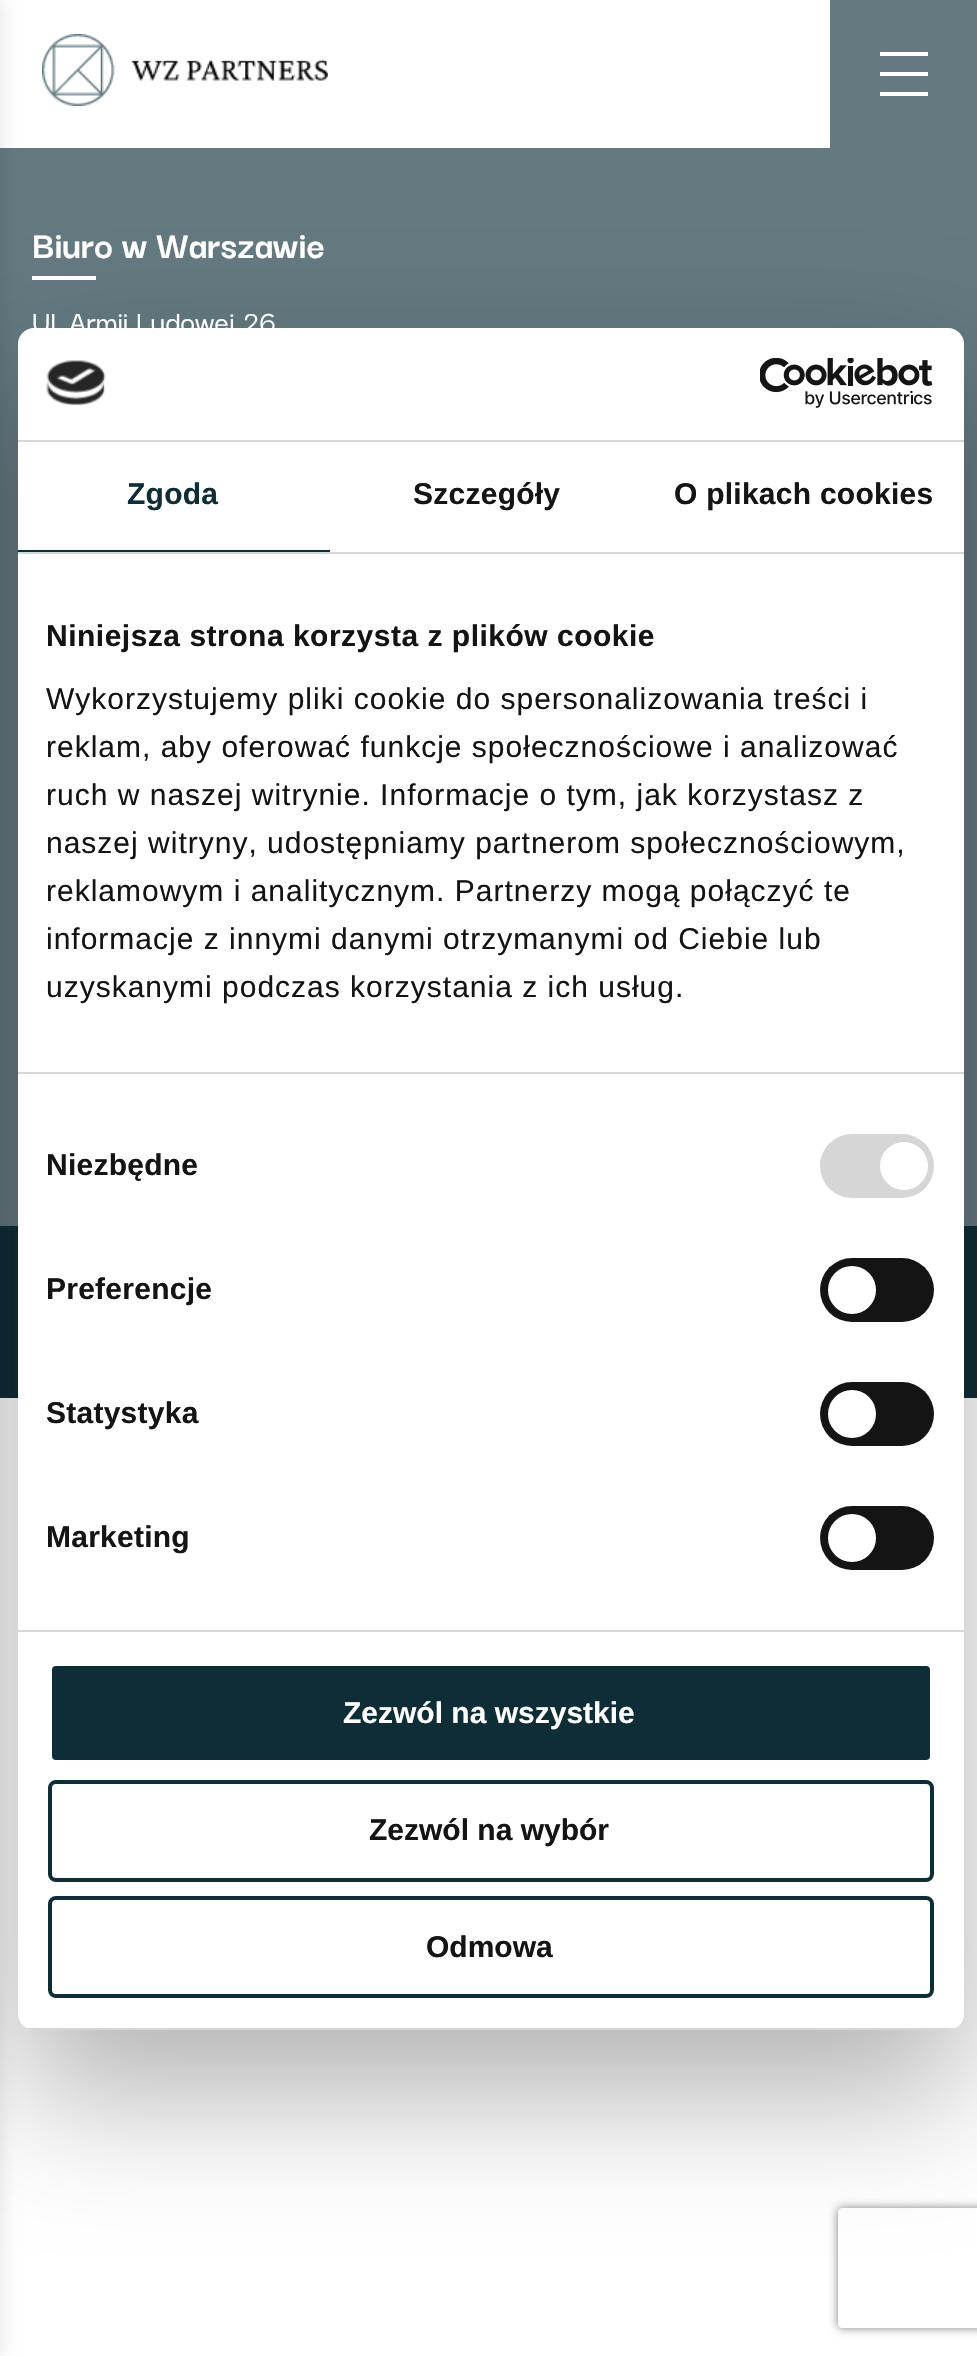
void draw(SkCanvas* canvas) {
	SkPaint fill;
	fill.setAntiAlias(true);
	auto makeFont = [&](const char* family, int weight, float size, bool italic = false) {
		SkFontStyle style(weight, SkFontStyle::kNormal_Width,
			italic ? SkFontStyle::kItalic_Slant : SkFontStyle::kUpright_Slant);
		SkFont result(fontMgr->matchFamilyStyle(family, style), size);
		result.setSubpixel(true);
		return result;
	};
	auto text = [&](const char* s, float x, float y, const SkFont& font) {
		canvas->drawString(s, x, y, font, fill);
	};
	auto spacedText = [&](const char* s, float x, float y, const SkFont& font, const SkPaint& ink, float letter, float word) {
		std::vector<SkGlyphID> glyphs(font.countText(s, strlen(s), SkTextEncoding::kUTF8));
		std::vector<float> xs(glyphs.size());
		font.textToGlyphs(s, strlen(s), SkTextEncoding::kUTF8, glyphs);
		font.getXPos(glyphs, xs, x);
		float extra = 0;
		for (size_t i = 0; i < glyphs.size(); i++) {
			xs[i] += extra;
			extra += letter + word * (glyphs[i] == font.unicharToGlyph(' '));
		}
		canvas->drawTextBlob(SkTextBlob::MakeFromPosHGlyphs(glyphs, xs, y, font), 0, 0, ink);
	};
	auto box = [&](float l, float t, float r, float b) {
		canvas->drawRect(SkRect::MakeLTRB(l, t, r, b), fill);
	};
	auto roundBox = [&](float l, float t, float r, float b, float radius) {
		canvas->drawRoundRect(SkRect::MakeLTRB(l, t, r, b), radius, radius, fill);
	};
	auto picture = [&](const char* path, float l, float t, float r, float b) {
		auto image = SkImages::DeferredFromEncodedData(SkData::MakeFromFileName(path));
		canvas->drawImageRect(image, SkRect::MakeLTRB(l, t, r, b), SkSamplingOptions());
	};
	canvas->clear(0xFFFFFFFF);
	fill.setColor(0xFF647980);
	box(0, 148, 977, 1226);
	fill.setColor(0xFF0F2D37);
	box(0, 1226, 977, 1398);
	fill.setColor(0x14000000);
	fill.setMaskFilter(SkMaskFilter::MakeBlur(kNormal_SkBlurStyle, 8));
	canvas->drawRect(SkRect::MakeLTRB(-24, 0, 4, 2356), fill);
	fill.setMaskFilter(nullptr);
	picture("image0.png", 42, 34, 328, 106);
	fill.setColor(0xFF647980);
	box(830, 0, 977, 148);
	fill.setColor(0xFFFFFFFF);
	box(880, 52, 928, 56);
	box(880, 72, 928, 76);
	box(880, 92, 928, 96);
	box(32, 276, 96, 280);
	fill.setColor(0x4D000000);
	fill.setMaskFilter(SkMaskFilter::MakeBlur(kNormal_SkBlurStyle, 68));
	canvas->drawRoundRect(SkRect::MakeLTRB(18, 392, 964, 2094), 16, 16, fill);
	fill.setMaskFilter(nullptr);
	fill.setColor(0xFFFFFFFF);
	roundBox(18, 328, 964, 2030, 16);
	fill.setColor(0xFFD6D6D6);
	box(18, 440, 964, 442);
	picture("image1.png", 46, 360, 106, 405);
	picture("image2.png", 760, 358, 933, 408);
	box(18, 552, 964, 554);
	fill.setColor(0xFF0F2D37);
	box(18, 550, 330, 552);
	fill.setColor(0xFFD6D6D6);
	box(18, 1072, 964, 1074);
	box(18, 1630, 964, 1632);
	roundBox(820, 1134, 934, 1198, 32);
	fill.setColor(0xFFFFFFFF);
	canvas->drawCircle(904, 1166, 24, fill);
	fill.setColor(0xFF141414);
	roundBox(820, 1258, 934, 1322, 32);
	fill.setColor(0xFFFFFFFF);
	canvas->drawCircle(852, 1290, 24, fill);
	fill.setColor(0xFF141414);
	roundBox(820, 1382, 934, 1446, 32);
	fill.setColor(0xFFFFFFFF);
	canvas->drawCircle(852, 1414, 24, fill);
	fill.setColor(0xFF141414);
	roundBox(820, 1506, 934, 1570, 32);
	fill.setColor(0xFFFFFFFF);
	canvas->drawCircle(852, 1538, 24, fill);
	canvas->save();
	canvas->clipPath(SkPathBuilder().moveTo(34, 328).lineTo(948, 328).cubicTo(957, 328, 964, 335, 964, 344).lineTo(964, 2014).cubicTo(964, 2023, 957, 2030, 948, 2030).lineTo(34, 2030).cubicTo(25, 2030, 18, 2023, 18, 2014).lineTo(18, 344).cubicTo(18, 335, 25, 328, 34, 328).close().detach(), true);
	fill.setColor(0xFFD6D6D6);
	box(18, 2028, 964, 2030);
	canvas->restore();
	fill.setColor(0xFF0F2D37);
	canvas->drawRoundRect(SkRect::MakeLTRB(50, 1664, 932, 1762), 6, 6, fill);
	fill.setStyle(SkPaint::kStroke_Style);
	fill.setStrokeWidth(4);
	fill.setColor(0xFFFFFFFF);
	canvas->drawRoundRect(SkRect::MakeLTRB(50, 1664, 932, 1762), 6, 6, fill);
	fill.setColor(0xFF0F2D37);
	canvas->drawRoundRect(SkRect::MakeLTRB(50, 1782, 932, 1880), 6, 6, fill);
	canvas->drawRoundRect(SkRect::MakeLTRB(50, 1898, 932, 1996), 6, 6, fill);
	canvas->save();
	canvas->clipPath(SkPathBuilder(SkPathFillType::kEvenOdd).moveTo(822, 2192).lineTo(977, 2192).lineTo(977, 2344).lineTo(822, 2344).close().moveTo(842, 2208).lineTo(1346, 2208).cubicTo(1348, 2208, 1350, 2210, 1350, 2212).lineTo(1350, 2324).cubicTo(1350, 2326, 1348, 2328, 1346, 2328).lineTo(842, 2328).cubicTo(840, 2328, 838, 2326, 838, 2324).lineTo(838, 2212).cubicTo(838, 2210, 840, 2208, 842, 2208).close().detach(), true);
	fill.setStyle(SkPaint::kFill_Style);
	fill.setColor(0xFF808080);
	fill.setMaskFilter(SkMaskFilter::MakeBlur(kNormal_SkBlurStyle, 5));
	canvas->drawRoundRect(SkRect::MakeLTRB(838, 2208, 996, 2328), 4, 4, fill);
	fill.setMaskFilter(nullptr);
	canvas->restore();
	auto font1 = makeFont("Darker Grotesque", 700, 40);
	fill.setColor(0xFFFFFFFF);
	text("Biuro w Warszawie", 32, 258, font1);
	auto font2 = makeFont("Darker Grotesque", 500, 32);
	text("Ul. Armii Ludowej 26", 32, 332, font2);
	auto font3 = makeFont("Liberation Sans", 700, 30);
	fill.setColor(0xFF0F2D37);
	spacedText("Zgoda", 127, 504, font3, fill, 0.25f, 0);
	fill.setColor(0xFF141414);
	spacedText("Szczegóły", 413, 504, font3, fill, 0.25f, 0);
	spacedText("O plikach cookies", 674, 504, font3, fill, 0.25f, 0);
	spacedText("Niniejsza strona korzysta z plików cookie", 46, 646, font3, fill, 0.5f, 0);
	auto font4 = makeFont("Liberation Sans", 400, 30);
	spacedText("Wykorzystujemy pliki cookie do spersonalizowania treści i", 46, 709, font4, fill, 1, 0);
	spacedText("reklam, aby oferować funkcje społecznościowe i analizować", 46, 757, font4, fill, 1, 0);
	spacedText("ruch w naszej witrynie. Informacje o tym, jak korzystasz z", 46, 805, font4, fill, 1, 0);
	spacedText("naszej witryny, udostępniamy partnerom społecznościowym,", 46, 853, font4, fill, 1, 0);
	spacedText("reklamowym i analitycznym. Partnerzy mogą połączyć te", 46, 901, font4, fill, 1, 0);
	spacedText("informacje z innymi danymi otrzymanymi od Ciebie lub", 46, 949, font4, fill, 1, 0);
	spacedText("uzyskanymi podczas korzystania z ich usług.", 46, 997, font4, fill, 1, 0);
	spacedText("Niezbędne", 46, 1175, font3, fill, 0.25f, 0);
	spacedText("Preferencje", 46, 1299, font3, fill, 0.25f, 0);
	spacedText("Statystyka", 46, 1423, font3, fill, 0.25f, 0);
	spacedText("Marketing", 46, 1547, font3, fill, 0.25f, 0);
	fill.setColor(0xFFFFFFFF);
	text("Zezwól na wszystkie", 343, 1723, font3);
	fill.setColor(0xFF141414);
	text("Zezwól na wybór", 369, 1840, font3);
	text("Odmowa", 426, 1957, font3);
}
